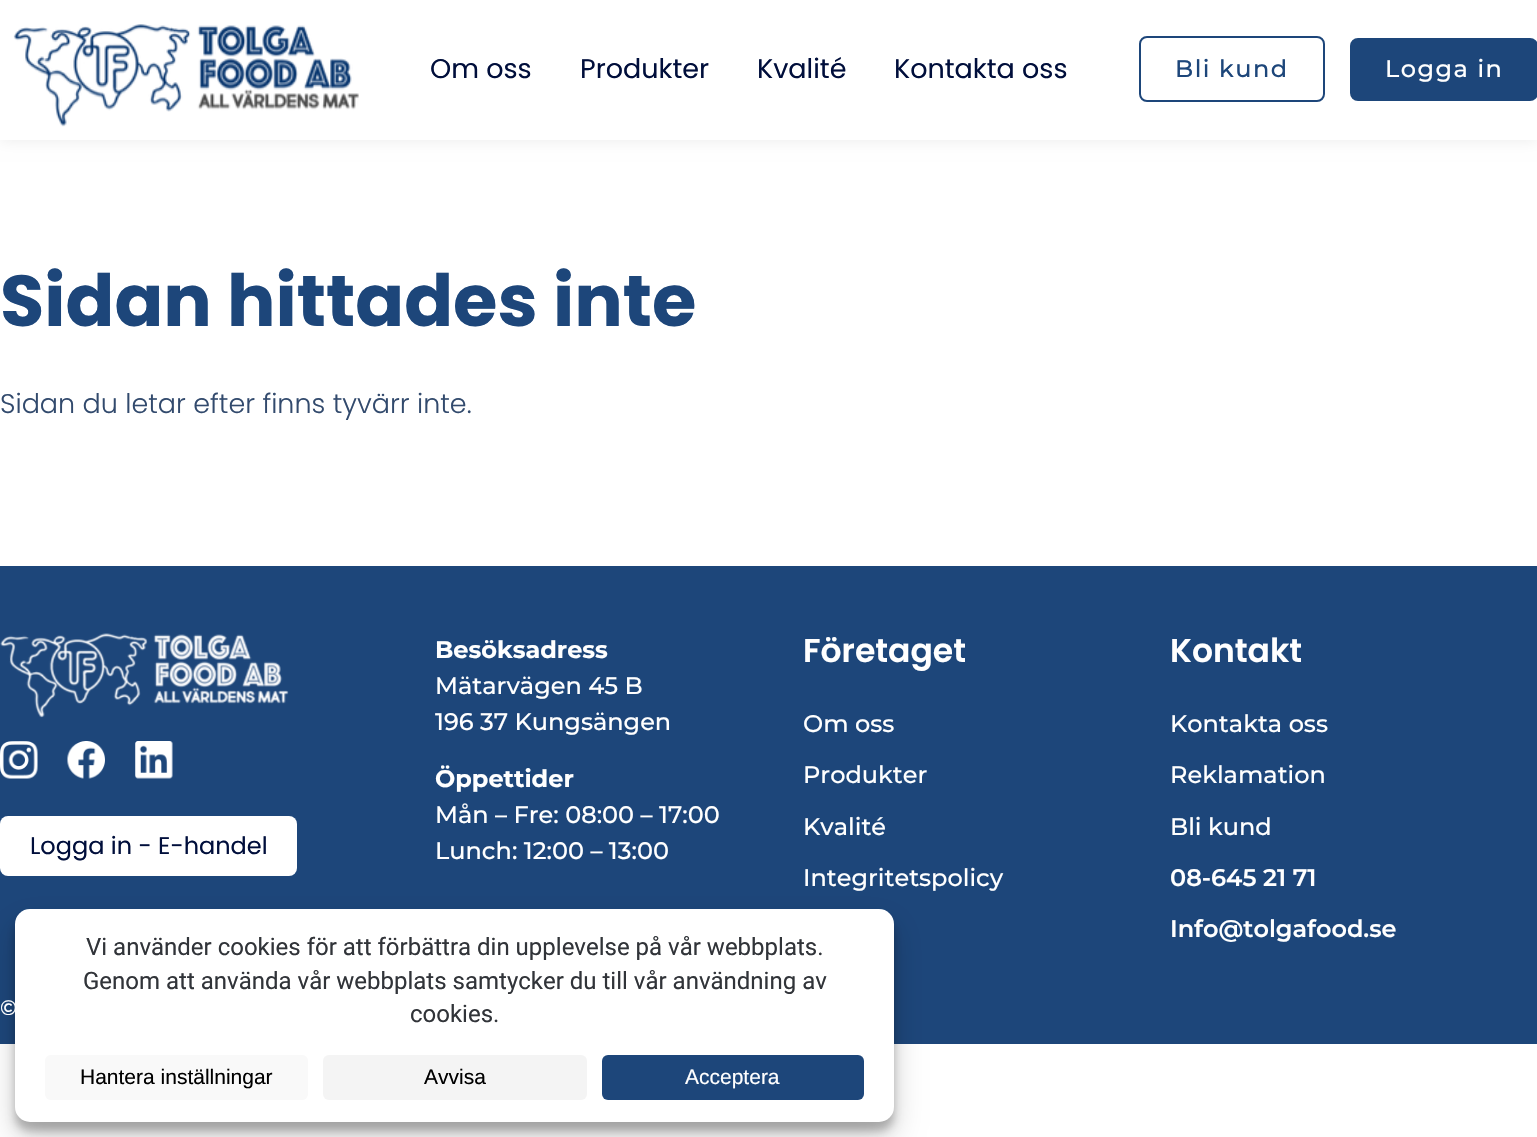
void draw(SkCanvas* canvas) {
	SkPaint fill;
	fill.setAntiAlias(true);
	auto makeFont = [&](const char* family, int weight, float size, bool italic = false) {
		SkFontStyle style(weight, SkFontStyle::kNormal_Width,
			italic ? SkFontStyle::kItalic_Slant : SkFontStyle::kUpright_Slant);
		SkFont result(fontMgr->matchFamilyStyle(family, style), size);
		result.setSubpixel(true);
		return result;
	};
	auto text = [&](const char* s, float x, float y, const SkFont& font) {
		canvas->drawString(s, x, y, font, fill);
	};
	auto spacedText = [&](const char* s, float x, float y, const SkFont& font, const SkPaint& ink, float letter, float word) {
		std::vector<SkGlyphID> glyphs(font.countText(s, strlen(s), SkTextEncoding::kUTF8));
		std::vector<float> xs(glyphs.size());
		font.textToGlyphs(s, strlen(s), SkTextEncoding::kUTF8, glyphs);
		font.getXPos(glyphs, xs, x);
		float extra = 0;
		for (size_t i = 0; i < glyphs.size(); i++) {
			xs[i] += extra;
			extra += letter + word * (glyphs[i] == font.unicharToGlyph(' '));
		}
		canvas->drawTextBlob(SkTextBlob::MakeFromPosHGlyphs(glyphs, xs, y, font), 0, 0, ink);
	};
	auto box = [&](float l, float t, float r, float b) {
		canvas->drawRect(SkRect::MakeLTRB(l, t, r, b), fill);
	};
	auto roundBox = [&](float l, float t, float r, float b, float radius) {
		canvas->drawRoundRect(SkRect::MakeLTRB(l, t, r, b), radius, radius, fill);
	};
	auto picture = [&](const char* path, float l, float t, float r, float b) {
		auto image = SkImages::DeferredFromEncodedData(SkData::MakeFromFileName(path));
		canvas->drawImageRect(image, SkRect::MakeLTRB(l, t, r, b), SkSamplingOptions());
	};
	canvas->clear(0xFFFFFFFF);
	fill.setColor(0x14000000);
	fill.setMaskFilter(SkMaskFilter::MakeBlur(kNormal_SkBlurStyle, 7.5f));
	canvas->drawRect(SkRect::MakeLTRB(0, 0, 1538, 140), fill);
	fill.setMaskFilter(nullptr);
	fill.setColor(0xFFFFFFFF);
	box(0, 0, 1537, 140);
	picture("image0.png", 13, 24, 359, 127);
	fill.setStyle(SkPaint::kStroke_Style);
	fill.setStrokeWidth(2);
	fill.setColor(0xFF1D467A);
	canvas->drawRoundRect(SkRect::MakeLTRB(1140, 37, 1324, 101), 7, 7, fill);
	fill.setStyle(SkPaint::kFill_Style);
	roundBox(1350, 38, 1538, 101, 8);
	box(0, 566, 1537, 1044);
	picture("image1.png", 0, 633, 289, 718);
	picture("image2.png", 0, 741, 38, 779);
	picture("image3.png", 67, 741, 105, 779);
	picture("image4.png", 135, 741, 173, 779);
	fill.setColor(0xFFFFFFFF);
	roundBox(0, 816, 297, 876, 8);
	fill.setColor(0x3B000000);
	fill.setMaskFilter(SkMaskFilter::MakeBlur(kNormal_SkBlurStyle, 4.5f));
	canvas->drawRoundRect(SkRect::MakeLTRB(15, 918, 894, 1131), 15, 15, fill);
	fill.setMaskFilter(nullptr);
	fill.setColor(0x30000000);
	fill.setMaskFilter(SkMaskFilter::MakeBlur(kNormal_SkBlurStyle, 15));
	canvas->drawRoundRect(SkRect::MakeLTRB(15, 924, 894, 1137), 15, 15, fill);
	fill.setMaskFilter(nullptr);
	fill.setColor(0xFFFFFFFF);
	roundBox(15, 909, 894, 1122, 15);
	fill.setColor(0xFFF9F9F9);
	roundBox(45, 1055, 308, 1100, 6);
	fill.setColor(0xFFF4F4F4);
	roundBox(323, 1055, 587, 1100, 6);
	fill.setColor(0xFF1D467A);
	roundBox(602, 1055, 864, 1100, 6);
	auto font1 = makeFont("Poppins", 400, 27);
	fill.setColor(0xFF000E3B);
	text("Om oss", 430, 78, font1);
	text("Produkter", 580, 78, font1);
	text("Kvalité", 757, 78, font1);
	text("Kontakta oss", 894, 78, font1);
	auto font2 = makeFont("Montserrat", 500, 24);
	fill.setColor(0xFF1D467A);
	spacedText("Bli kund", 1175, 77, font2, fill, 1.5f, 0);
	fill.setColor(0xFFFFFFFF);
	spacedText("Logga in", 1385, 77, font2, fill, 1.5f, 0);
	auto font3 = makeFont("Poppins", 700, 72);
	fill.setColor(0xFF1D467A);
	text("Sidan hittades inte", 0, 326, font3);
	auto font4 = makeFont("Poppins", 300, 27);
	fill.setColor(0xFF324A6D);
	text("Sidan du letar efter finns tyvärr inte.", 0, 413, font4);
	auto font5 = makeFont("Poppins", 400, 24);
	fill.setColor(0xFF000E3B);
	text("Logga in - E-handel", 30, 854, font5);
	auto font6 = makeFont("Montserrat", 700, 24);
	fill.setColor(0xFFFFFFFF);
	text("Besöksadress", 435, 658, font6);
	text("Mätarvägen 45 B", 435, 694, font2);
	text("196 37 Kungsängen", 435, 730, font2);
	text("Öppettider", 435, 787, font6);
	text("Mån – Fre: 08:00 – 17:00", 435, 823, font2);
	text("Lunch: 12:00 – 13:00", 435, 859, font2);
	auto font7 = makeFont("Poppins", 600, 33);
	text("Företaget", 803, 662, font7);
	text("Om oss", 803, 732, font2);
	text("Produkter", 803, 783, font2);
	text("Kvalité", 803, 835, font2);
	text("Integritetspolicy", 803, 886, font2);
	text("Kontakt", 1170, 662, font7);
	text("Kontakta oss", 1170, 732, font2);
	text("Reklamation", 1170, 783, font2);
	text("Bli kund", 1170, 835, font2);
	auto font8 = makeFont("Montserrat", 600, 24);
	text("08-645 21 71", 1170, 886, font8);
	text("Info@tolgafood.se", 1170, 937, font8);
	auto font9 = makeFont("Montserrat", 500, 21);
	text("©", 0, 1015, font9);
	auto font10 = makeFont("Roboto", 400, 24);
	fill.setColor(0xFF313439);
	text("Vi använder cookies för att förbättra din upplevelse på vår webbplats.", 86, 955, font10);
	text("Genom att använda vår webbplats samtycker du till vår användning av", 83, 989, font10);
	text("cookies.", 410, 1022, font10);
	auto font11 = makeFont("Liberation Sans", 400, 21);
	fill.setColor(0xFF000000);
	text("Hantera inställningar", 80, 1084, font11);
	text("Avvisa", 424, 1084, font11);
	fill.setColor(0xFFFFFFFF);
	text("Acceptera", 685, 1084, font11);
}
